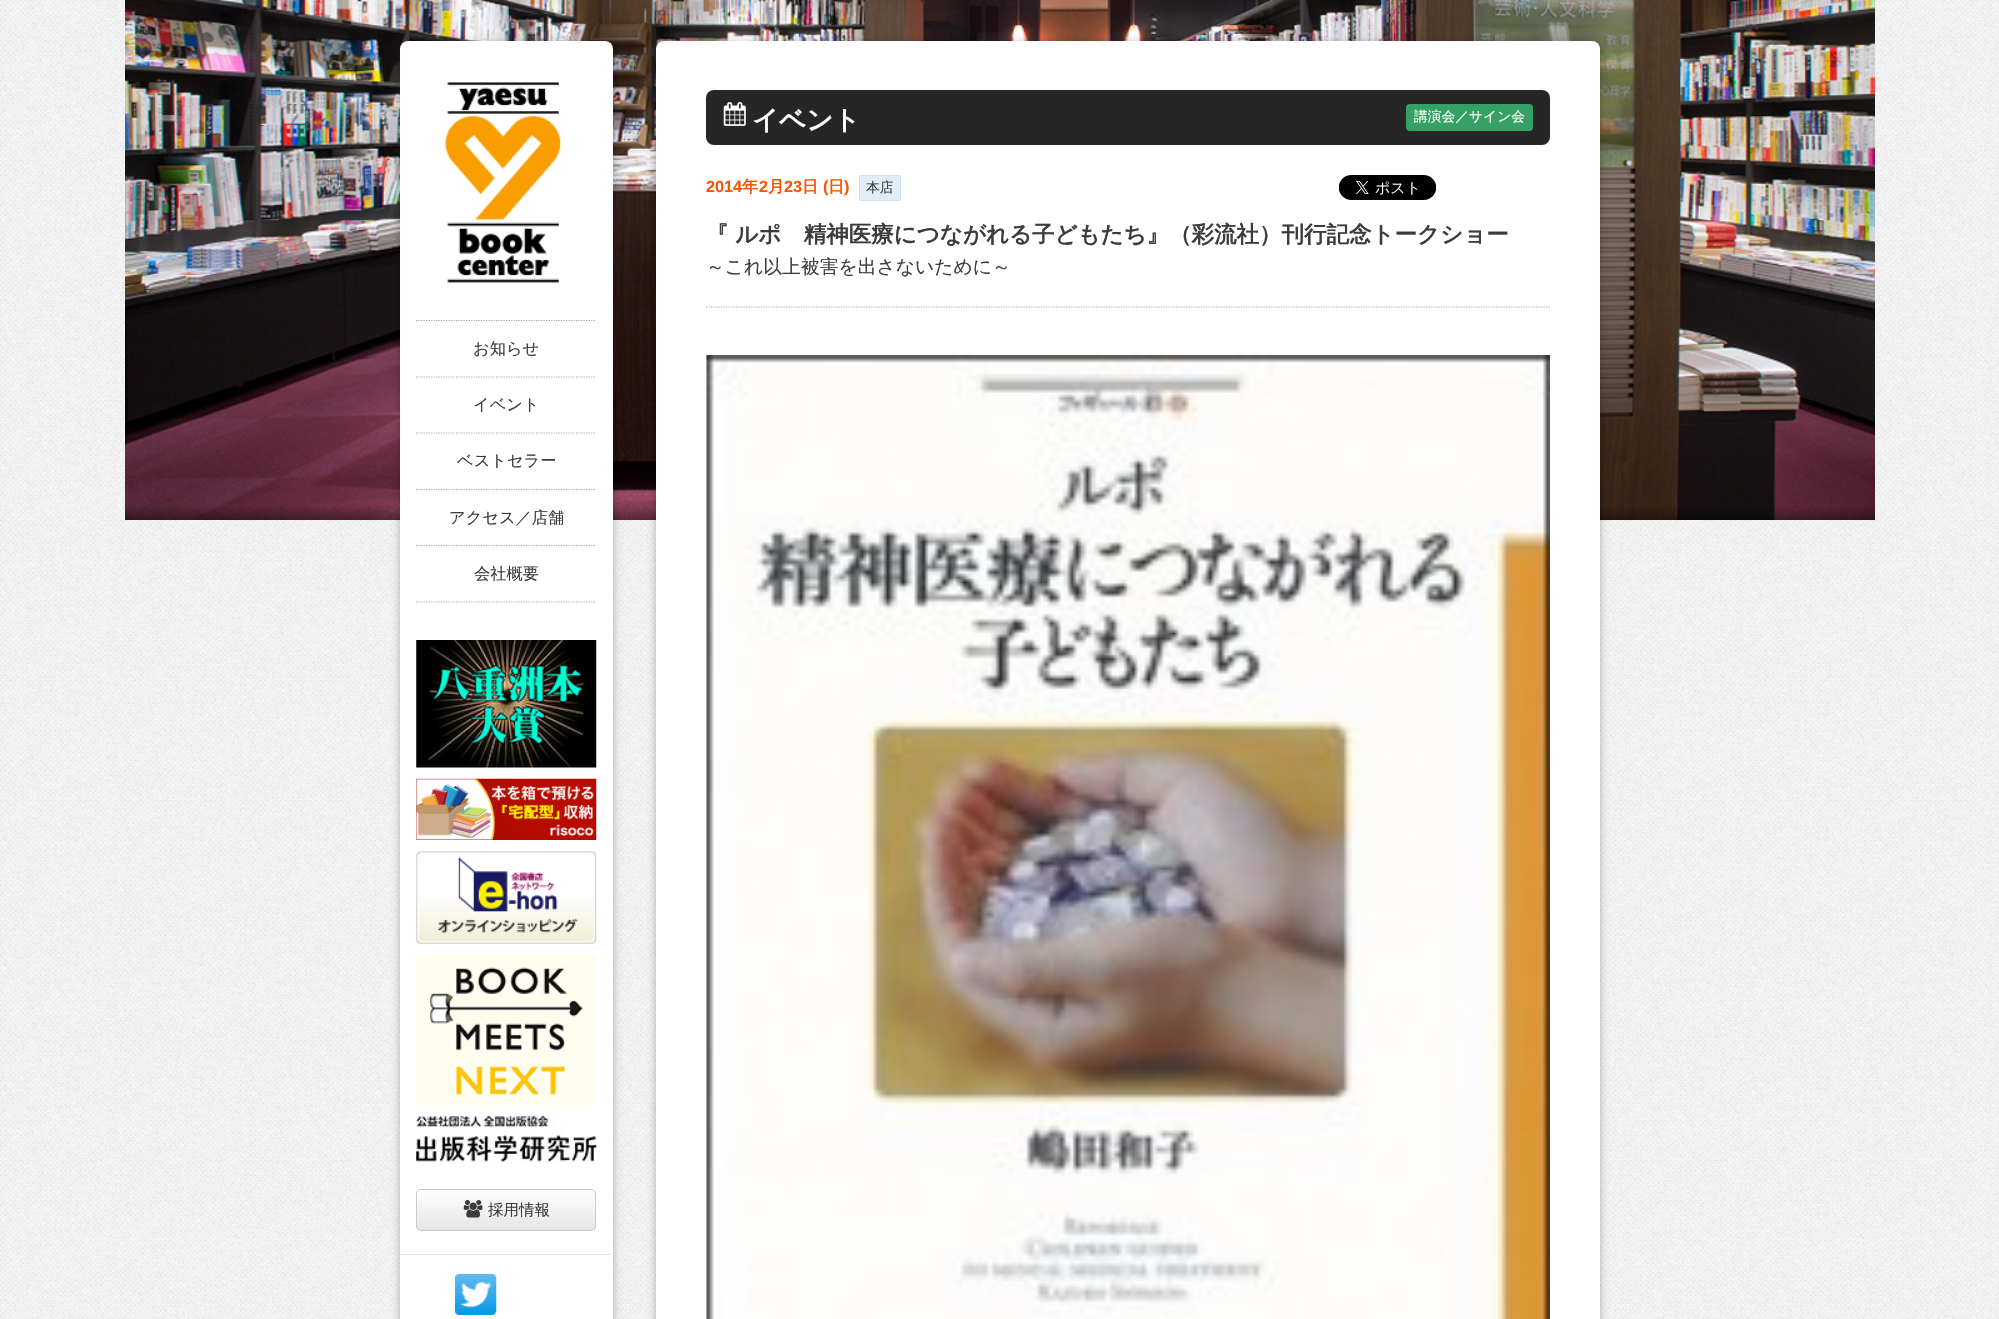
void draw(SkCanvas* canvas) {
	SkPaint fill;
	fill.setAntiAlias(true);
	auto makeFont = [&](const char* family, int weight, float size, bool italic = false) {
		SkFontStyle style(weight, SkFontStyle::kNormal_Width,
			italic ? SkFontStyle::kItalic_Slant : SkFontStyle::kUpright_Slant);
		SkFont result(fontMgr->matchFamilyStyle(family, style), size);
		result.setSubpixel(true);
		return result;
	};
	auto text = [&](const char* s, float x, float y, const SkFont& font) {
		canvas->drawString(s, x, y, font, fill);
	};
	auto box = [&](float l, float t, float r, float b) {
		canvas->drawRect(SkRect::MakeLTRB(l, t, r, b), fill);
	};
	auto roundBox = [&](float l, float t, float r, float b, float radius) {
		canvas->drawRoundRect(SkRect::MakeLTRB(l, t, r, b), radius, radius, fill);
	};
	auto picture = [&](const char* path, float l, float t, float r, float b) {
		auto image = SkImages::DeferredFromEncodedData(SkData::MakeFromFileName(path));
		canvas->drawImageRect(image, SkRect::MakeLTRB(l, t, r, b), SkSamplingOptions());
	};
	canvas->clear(0xFFFFFFFF);
	picture("image0.png", 0, 0, 1999, 1319);
	picture("image1.png", 125, 0, 1875, 520);
	fill.setColor(0x4D000000);
	fill.setMaskFilter(SkMaskFilter::MakeBlur(kNormal_SkBlurStyle, 4));
	canvas->drawRoundRect(SkRect::MakeLTRB(656, 43, 1600, 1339), 8, 8, fill);
	fill.setMaskFilter(nullptr);
	fill.setColor(0xFFFFFFFF);
	roundBox(656, 41, 1600, 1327, 8);
	fill.setColor(0xFF262626);
	roundBox(706, 90, 1550, 145, 8);
	picture("image2.png", 723, 102, 746, 126);
	fill.setColor(0xFF36A164);
	roundBox(1406, 104, 1533, 131, 4);
	fill.setColor(0xFFE0EDF6);
	canvas->drawRoundRect(SkRect::MakeLTRB(859.5f, 175.5f, 900.5f, 200.5f), 2, 2, fill);
	fill.setStyle(SkPaint::kStroke_Style);
	fill.setStrokeWidth(1);
	fill.setColor(0xFFCDE0ED);
	canvas->drawRoundRect(SkRect::MakeLTRB(859.5f, 175.5f, 900.5f, 200.5f), 2, 2, fill);
	picture("image3.png", 1339, 175, 1436, 200);
	fill.setStrokeWidth(1.2f);
	fill.setColor(0xFFA6A6A6);
	fill.setPathEffect(SkDashPathEffect::Make({{1.25f, 1.25f}}, 0));
	canvas->drawPath(SkPathBuilder().moveTo(706, 307).lineTo(1550, 307).detach(), fill);
	fill.setPathEffect(nullptr);
	picture("image4.png", 706, 355, 1550, 1319);
	fill.setStyle(SkPaint::kFill_Style);
	fill.setColor(0x4D000000);
	fill.setMaskFilter(SkMaskFilter::MakeBlur(kNormal_SkBlurStyle, 4));
	canvas->drawRoundRect(SkRect::MakeLTRB(400, 43, 613, 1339), 8, 8, fill);
	fill.setMaskFilter(nullptr);
	fill.setColor(0xFFFFFFFF);
	roundBox(400, 41, 613, 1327, 8);
	picture("image5.png", 445, 82, 562, 283);
	fill.setStyle(SkPaint::kStroke_Style);
	fill.setColor(0xFFA6A6A6);
	fill.setPathEffect(SkDashPathEffect::Make({{1.25f, 1.25f}}, 0));
	canvas->drawPath(SkPathBuilder().moveTo(416, 320.5f).lineTo(596, 320.5f).detach(), fill);
	fill.setPathEffect(nullptr);
	fill.setPathEffect(SkDashPathEffect::Make({{1.25f, 1.25f}}, 0));
	canvas->drawPath(SkPathBuilder().moveTo(416, 377).lineTo(596, 377).detach(), fill);
	fill.setPathEffect(nullptr);
	fill.setPathEffect(SkDashPathEffect::Make({{1.25f, 1.25f}}, 0));
	canvas->drawPath(SkPathBuilder().moveTo(416, 433).lineTo(596, 433).detach(), fill);
	fill.setPathEffect(nullptr);
	fill.setPathEffect(SkDashPathEffect::Make({{1.25f, 1.25f}}, 0));
	canvas->drawPath(SkPathBuilder().moveTo(416, 489.5f).lineTo(596, 489.5f).detach(), fill);
	fill.setPathEffect(nullptr);
	fill.setPathEffect(SkDashPathEffect::Make({{1.25f, 1.25f}}, 0));
	canvas->drawPath(SkPathBuilder().moveTo(416, 545.5f).lineTo(596, 545.5f).detach(), fill);
	fill.setPathEffect(nullptr);
	fill.setPathEffect(SkDashPathEffect::Make({{1.25f, 1.25f}}, 0));
	canvas->drawPath(SkPathBuilder().moveTo(416, 602).lineTo(596, 602).detach(), fill);
	fill.setPathEffect(nullptr);
	picture("image6.png", 416, 640, 597, 768);
	picture("image7.png", 416, 778, 597, 840);
	picture("image8.png", 416, 851, 597, 944);
	picture("image9.png", 416, 955, 597, 1105);
	picture("image10.png", 416, 1116, 597, 1162);
	canvas->save();
	canvas->clipPath(SkPathBuilder().moveTo(421, 1189).lineTo(591, 1189).cubicTo(594, 1189, 596, 1191, 596, 1194).lineTo(596, 1226).cubicTo(596, 1229, 594, 1231, 591, 1231).lineTo(421, 1231).cubicTo(418, 1231, 416, 1229, 416, 1226).lineTo(416, 1194).cubicTo(416, 1191, 418, 1189, 421, 1189).close().detach(), true);
	fill.setStyle(SkPaint::kFill_Style);
	{
		const SkColor colors[] = {0xFFFFFFFF, 0xFFE5E5E5};
		const float stops[] = {0, 1};
		const SkPoint ends[] = {{506, 1190}, {506, 1230}};
		fill.setShader(SkGradientShader::MakeLinear(ends, colors, stops, 2, SkTileMode::kClamp));
		fill.setAlpha(255);
	}
	box(416, 1190, 596, 1230);
	canvas->restore();
	fill.setStyle(SkPaint::kStroke_Style);
	fill.setStrokeWidth(1);
	fill.setShader(nullptr);
	fill.setColor(0xFFC8CACF);
	canvas->drawRoundRect(SkRect::MakeLTRB(416.5f, 1189.5f, 595.5f, 1230.5f), 4.5f, 4.5f, fill);
	picture("image11.png", 463, 1200, 483, 1218);
	fill.setStyle(SkPaint::kFill_Style);
	fill.setColor(0xFFE6E6E6);
	box(400, 1254, 613, 1255);
	picture("image12.png", 455, 1273, 497, 1315);
	auto font1 = makeFont("WenQuanYi Zen Hei", 700, 26.5f);
	fill.setColor(0xFFFFFFFF);
	text("イベント", 752, 129, font1);
	auto font2 = makeFont("WenQuanYi Zen Hei", 500, 13.75f);
	text("講演会／サイン会", 1414, 121, font2);
	auto font3 = makeFont("Liberation Sans", 700, 16.25f);
	fill.setColor(0xFFFF5200);
	text("2014", 706, 192, font3);
	auto font4 = makeFont("WenQuanYi Zen Hei", 700, 16.25f);
	text("年", 742, 192, font4);
	text("2", 759, 192, font3);
	text("月", 768, 192, font4);
	text("23", 784, 192, font3);
	text("日", 802, 192, font4);
	text("(", 823, 192, font3);
	text("日", 828, 192, font4);
	text(")", 844, 192, font3);
	fill.setColor(0xFF3C3C3C);
	text("本店", 866, 192, font2);
	auto font5 = makeFont("WenQuanYi Zen Hei", 700, 22.5f);
	text("『 ルポ　精神医療につながれる子どもたち』（彩流社）刊行記念トークショー", 706, 242, font5);
	auto font6 = makeFont("WenQuanYi Zen Hei", 500, 18.8f);
	text("～これ以上被害を出さないために～", 706, 273, font6);
	auto font7 = makeFont("WenQuanYi Zen Hei", 500, 16.25f);
	text("お知らせ", 473, 354, font7);
	text("イベント", 473, 410, font7);
	text("ベストセラー", 457, 466, font7);
	text("アクセス／店舗", 449, 523, font7);
	text("会社概要", 474, 579, font7);
	auto font8 = makeFont("WenQuanYi Zen Hei", 500, 15.5f);
	text("採用情報", 488, 1215, font8);
}
